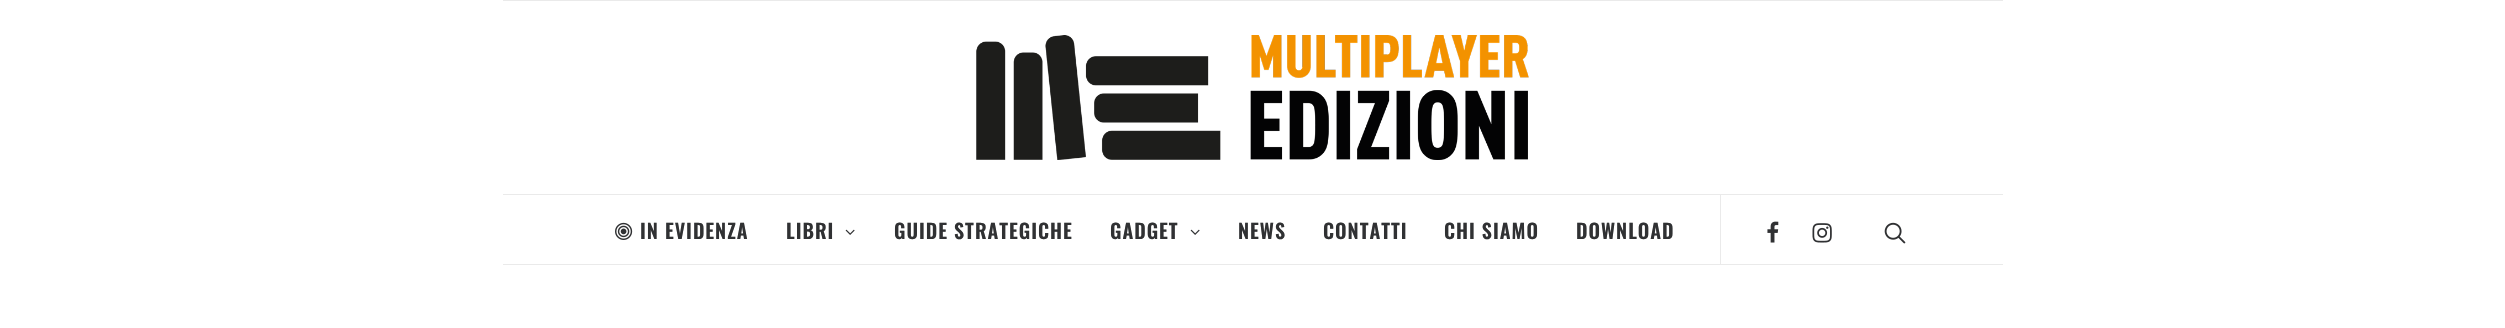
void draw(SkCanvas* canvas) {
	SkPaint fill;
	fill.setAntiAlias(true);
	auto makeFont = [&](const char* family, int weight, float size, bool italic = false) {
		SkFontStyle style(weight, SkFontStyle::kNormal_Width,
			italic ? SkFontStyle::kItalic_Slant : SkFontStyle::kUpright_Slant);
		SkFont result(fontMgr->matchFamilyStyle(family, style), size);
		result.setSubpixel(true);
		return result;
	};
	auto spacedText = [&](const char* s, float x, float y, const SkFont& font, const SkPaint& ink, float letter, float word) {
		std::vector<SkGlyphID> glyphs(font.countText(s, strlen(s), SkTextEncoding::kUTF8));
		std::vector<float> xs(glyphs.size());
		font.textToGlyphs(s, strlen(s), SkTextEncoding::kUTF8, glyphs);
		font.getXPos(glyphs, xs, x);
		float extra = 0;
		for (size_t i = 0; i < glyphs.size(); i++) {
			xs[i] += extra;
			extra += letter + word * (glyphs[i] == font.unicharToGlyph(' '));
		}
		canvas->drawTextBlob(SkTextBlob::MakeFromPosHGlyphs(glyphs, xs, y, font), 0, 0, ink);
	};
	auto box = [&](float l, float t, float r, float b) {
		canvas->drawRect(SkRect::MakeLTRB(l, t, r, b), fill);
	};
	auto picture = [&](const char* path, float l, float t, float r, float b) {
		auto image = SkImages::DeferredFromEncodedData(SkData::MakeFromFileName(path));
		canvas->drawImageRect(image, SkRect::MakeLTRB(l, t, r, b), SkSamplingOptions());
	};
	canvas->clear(0xFFFFFFFF);
	fill.setColor(0xFFEAEAEA);
	box(503, 0, 2003, 1);
	picture("image0.png", 976, 35, 1529, 160);
	box(503, 194, 2003, 195);
	box(503, 264, 2003, 265);
	picture("image1.png", 615, 222, 633, 240);
	picture("image2.png", 845, 229, 855, 235);
	picture("image2.png", 1190, 229, 1200, 235);
	box(1720, 195, 1721, 264);
	picture("image3.png", 1767, 221, 1779, 243);
	picture("image4.png", 1812, 223, 1832, 243);
	picture("image5.png", 1884, 222, 1906, 244);
	auto font1 = makeFont("Oswald", 600, 20);
	fill.setColor(0xFF303133);
	spacedText("IN EVIDENZA", 640, 239, font1, fill, 1, 0);
	spacedText("LIBRI", 786, 239, font1, fill, 1, 0);
	spacedText("GUIDE STRATEGICHE", 894, 239, font1, fill, 1, 0);
	spacedText("GADGET", 1110, 239, font1, fill, 1, 0);
	spacedText("NEWS", 1238, 239, font1, fill, 1, 0);
	spacedText("CONTATTI", 1323, 239, font1, fill, 1, 0);
	spacedText("CHI SIAMO", 1444, 239, font1, fill, 1, 0);
	spacedText("DOWNLOAD", 1576, 239, font1, fill, 1, 0);
}
